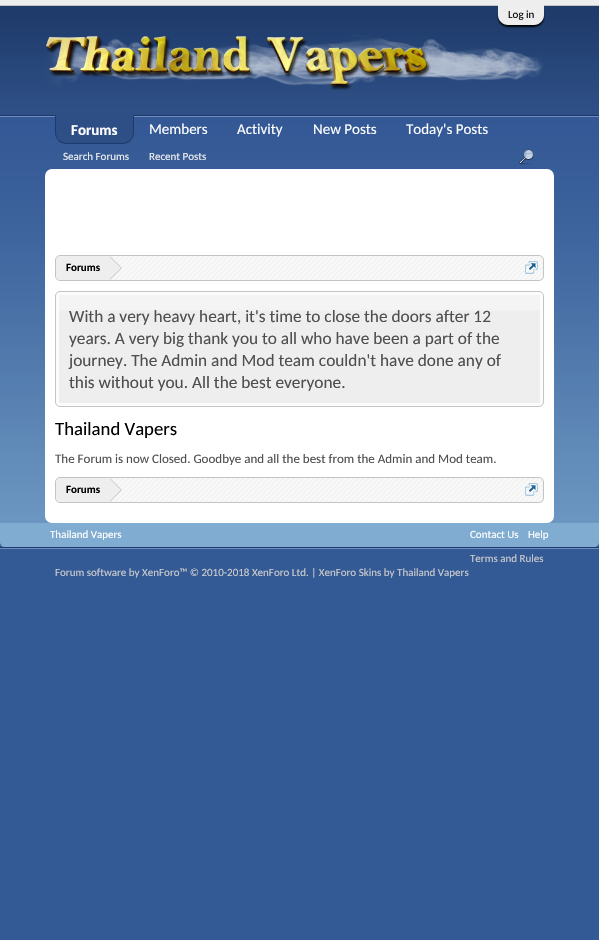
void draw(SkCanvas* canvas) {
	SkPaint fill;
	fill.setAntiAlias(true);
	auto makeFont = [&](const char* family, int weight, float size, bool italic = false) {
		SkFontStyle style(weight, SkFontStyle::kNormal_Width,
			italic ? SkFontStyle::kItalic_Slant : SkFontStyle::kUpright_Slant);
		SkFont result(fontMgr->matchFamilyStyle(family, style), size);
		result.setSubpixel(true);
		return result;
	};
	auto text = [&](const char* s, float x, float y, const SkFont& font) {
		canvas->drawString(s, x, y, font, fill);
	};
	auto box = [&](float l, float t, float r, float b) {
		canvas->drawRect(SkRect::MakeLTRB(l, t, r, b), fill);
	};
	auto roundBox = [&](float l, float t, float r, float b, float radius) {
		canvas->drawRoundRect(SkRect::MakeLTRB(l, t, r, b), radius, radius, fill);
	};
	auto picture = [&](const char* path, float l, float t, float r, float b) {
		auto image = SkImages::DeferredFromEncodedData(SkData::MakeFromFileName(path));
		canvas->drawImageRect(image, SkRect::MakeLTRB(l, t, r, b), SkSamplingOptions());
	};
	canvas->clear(0xFF345A96);
	fill.setColor(0xFFEEEEEE);
	box(0, 0, 599, 5);
	fill.setColor(0xFFC4C4C4);
	box(0, 5, 599, 6);
	picture("image0.png", 0, 6, 599, 523);
	fill.setColor(0xFF000000);
	fill.setMaskFilter(SkMaskFilter::MakeBlur(kNormal_SkBlurStyle, 1));
	canvas->drawRoundRect(SkRect::MakeLTRB(498, 7, 544, 27), 10, 10, fill);
	fill.setMaskFilter(nullptr);
	fill.setColor(0xFFEEEEEE);
	canvas->drawPath(SkPathBuilder().moveTo(498, 5).lineTo(544, 5).lineTo(544, 15).cubicTo(544, 20.5f, 539.5f, 25, 534, 25).lineTo(508, 25).cubicTo(502.5f, 25, 498, 20.5f, 498, 15).close().detach(), fill);
	picture("image1.png", 45, 35, 543, 90);
	fill.setColor(0xFF2E4F86);
	canvas->drawPath(SkPathBuilder().moveTo(55, 115).lineTo(134, 115).lineTo(134, 132).cubicTo(134, 138.5f, 128.5f, 144, 122, 144).lineTo(67, 144).cubicTo(60.5f, 144, 55, 138.5f, 55, 132).close().detach(), fill);
	fill.setColor(0xFF1A3B6F);
	canvas->drawPath(SkPathBuilder().moveTo(134, 115).lineTo(133, 116).lineTo(133, 132).cubicTo(133, 135, 132, 138, 130, 140).lineTo(130.5f, 140.5f).cubicTo(133, 138.5f, 134, 135.5f, 134, 132).close().detach(), fill);
	canvas->drawPath(SkPathBuilder().moveTo(67, 144).lineTo(122, 144).cubicTo(126, 144, 128, 143, 131, 141).lineTo(130, 140).cubicTo(128, 142, 125, 143, 122, 143).lineTo(67, 143).cubicTo(64, 143, 61, 142, 59, 140).lineTo(58, 141).cubicTo(60, 143, 64, 144, 67, 144).close().detach(), fill);
	canvas->drawPath(SkPathBuilder().moveTo(56, 116).lineTo(55, 115).lineTo(55, 132).cubicTo(55, 135.5f, 56, 138.5f, 58.5f, 140.5f).lineTo(59, 140).cubicTo(57, 138, 56, 135, 56, 132).close().detach(), fill);
	picture("image2.png", 519, 149, 534, 165);
	fill.setColor(0xFFFFFFFF);
	roundBox(45, 169, 554, 523, 7);
	picture("image3.png", 55, 255, 544, 281);
	fill.setStyle(SkPaint::kStroke_Style);
	fill.setStrokeWidth(1);
	fill.setColor(0xFFC4C4C4);
	canvas->drawRoundRect(SkRect::MakeLTRB(55.5f, 255.5f, 543.5f, 280.5f), 4.5f, 4.5f, fill);
	canvas->save();
	canvas->clipPath(SkPathBuilder().moveTo(60, 256).lineTo(539, 256).cubicTo(541, 256, 543, 258, 543, 260).lineTo(543, 276).cubicTo(543, 278, 541, 280, 539, 280).lineTo(60, 280).cubicTo(58, 280, 56, 278, 56, 276).lineTo(56, 260).cubicTo(56, 258, 58, 256, 60, 256).close().detach(), true);
	fill.setStyle(SkPaint::kFill_Style);
	fill.setColor(0xFFEEEEEE);
	canvas->drawPath(SkPathBuilder().moveTo(61, 256).lineTo(110, 256).lineTo(110, 281).lineTo(61, 281).cubicTo(58, 281, 56, 279, 56, 276).lineTo(56, 261).cubicTo(56, 258, 58, 256, 61, 256).close().detach(), fill);
	canvas->restore();
	fill.setColor(0xFFC4C4C4);
	canvas->drawPath(SkPathBuilder().moveTo(110, 280).lineTo(110, 256).lineTo(122, 268).close().detach(), fill);
	fill.setColor(0xFFEEEEEE);
	canvas->drawPath(SkPathBuilder().moveTo(109, 280).lineTo(109, 256).lineTo(121, 268).close().detach(), fill);
	picture("image4.png", 525, 261, 538, 274);
	fill.setColor(0xFFFCFCFF);
	canvas->drawRoundRect(SkRect::MakeLTRB(55.5f, 291.5f, 543.5f, 406.5f), 4.5f, 4.5f, fill);
	fill.setStyle(SkPaint::kStroke_Style);
	fill.setColor(0xFFC4C4C4);
	canvas->drawRoundRect(SkRect::MakeLTRB(55.5f, 291.5f, 543.5f, 406.5f), 4.5f, 4.5f, fill);
	fill.setStyle(SkPaint::kFill_Style);
	fill.setColor(0xFFEEEEEE);
	box(59, 295, 540, 403);
	picture("image5.png", 59, 295, 540, 311);
	picture("image3.png", 55, 477, 544, 503);
	fill.setStyle(SkPaint::kStroke_Style);
	fill.setColor(0xFFC4C4C4);
	canvas->drawRoundRect(SkRect::MakeLTRB(55.5f, 477.5f, 543.5f, 502.5f), 4.5f, 4.5f, fill);
	canvas->save();
	canvas->clipPath(SkPathBuilder().moveTo(60, 478).lineTo(539, 478).cubicTo(541, 478, 543, 480, 543, 482).lineTo(543, 498).cubicTo(543, 500, 541, 502, 539, 502).lineTo(60, 502).cubicTo(58, 502, 56, 500, 56, 498).lineTo(56, 482).cubicTo(56, 480, 58, 478, 60, 478).close().detach(), true);
	fill.setStyle(SkPaint::kFill_Style);
	fill.setColor(0xFFEEEEEE);
	canvas->drawPath(SkPathBuilder().moveTo(61, 478).lineTo(110, 478).lineTo(110, 503).lineTo(61, 503).cubicTo(58, 503, 56, 501, 56, 498).lineTo(56, 483).cubicTo(56, 480, 58, 478, 61, 478).close().detach(), fill);
	canvas->restore();
	fill.setColor(0xFFC4C4C4);
	canvas->drawPath(SkPathBuilder().moveTo(110, 502).lineTo(110, 478).lineTo(122, 490).close().detach(), fill);
	fill.setColor(0xFFEEEEEE);
	canvas->drawPath(SkPathBuilder().moveTo(109, 502).lineTo(109, 478).lineTo(121, 490).close().detach(), fill);
	picture("image4.png", 525, 483, 538, 496);
	fill.setColor(0xFF7FACD0);
	canvas->drawPath(SkPathBuilder().moveTo(0, 523).lineTo(599, 523).lineTo(599, 542).cubicTo(599, 545, 597, 547, 594, 547).lineTo(5, 547).cubicTo(2, 547, 0, 545, 0, 542).close().detach(), fill);
	picture("image6.png", 0, 547, 599, 549);
	auto font1 = makeFont("Carlito", 400, 11);
	fill.setColor(0xFF000000);
	text("Log in", 508, 18, font1);
	auto font2 = makeFont("Carlito", 400, 15);
	fill.setColor(0xFFFFFFFF);
	text("Members", 149, 134, font2);
	text("Activity", 237, 134, font2);
	text("New Posts", 313, 134, font2);
	text("Today's Posts", 406, 134, font2);
	auto font3 = makeFont("Carlito", 700, 15);
	text("Forums", 71, 135, font3);
	fill.setColor(0xFFEEEEEE);
	text("Search Forums", 63, 160, font1);
	text("Recent Posts", 149, 160, font1);
	auto font4 = makeFont("Carlito", 700, 11);
	fill.setColor(0xFF000000);
	text("Forums", 66, 271, font4);
	auto font5 = makeFont("Carlito", 400, 17.3f);
	fill.setColor(0xFF4E4E4E);
	text("With a very heavy heart, it's time to close the doors after 12", 69, 322, font5);
	text("years. A very big thank you to all who have been a part of the", 69, 344, font5);
	text("journey. The Admin and Mod team couldn't have done any of", 69, 366, font5);
	text("this without you. All the best everyone.", 69, 388, font5);
	auto font6 = makeFont("Carlito", 400, 18.75f);
	fill.setColor(0xFF000000);
	text("Thailand Vapers", 55, 435, font6);
	auto font7 = makeFont("Carlito", 400, 13);
	fill.setColor(0xFF4E4E4E);
	text("The Forum is now Closed. Goodbye and all the best from the Admin and Mod team.", 55, 463, font7);
	fill.setColor(0xFF000000);
	text("Forums", 66, 493, font4);
	fill.setColor(0xFFFFFFFF);
	text("Thailand Vapers", 50, 538, font1);
	text("Contact Us", 470, 538, font1);
	text("Help", 528, 538, font1);
	fill.setColor(0xFFCCCCCC);
	text("Terms and Rules", 470, 562, font1);
	text("Forum software by XenForo™ © 2010-2018 XenForo Ltd. | XenForo Skins by Thailand Vapers", 55, 576, font1);
}
